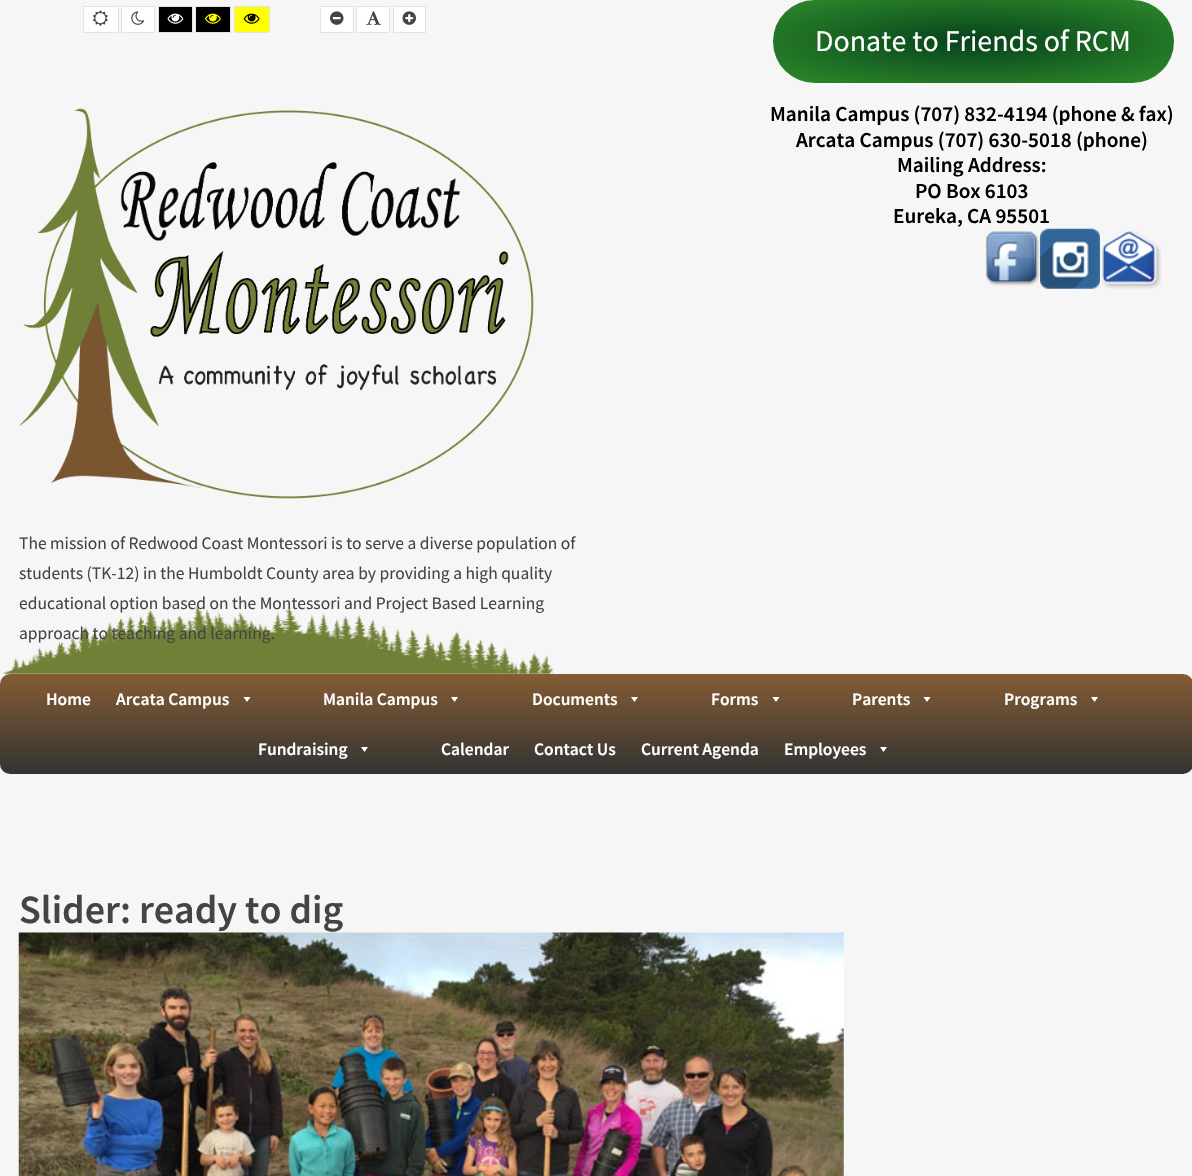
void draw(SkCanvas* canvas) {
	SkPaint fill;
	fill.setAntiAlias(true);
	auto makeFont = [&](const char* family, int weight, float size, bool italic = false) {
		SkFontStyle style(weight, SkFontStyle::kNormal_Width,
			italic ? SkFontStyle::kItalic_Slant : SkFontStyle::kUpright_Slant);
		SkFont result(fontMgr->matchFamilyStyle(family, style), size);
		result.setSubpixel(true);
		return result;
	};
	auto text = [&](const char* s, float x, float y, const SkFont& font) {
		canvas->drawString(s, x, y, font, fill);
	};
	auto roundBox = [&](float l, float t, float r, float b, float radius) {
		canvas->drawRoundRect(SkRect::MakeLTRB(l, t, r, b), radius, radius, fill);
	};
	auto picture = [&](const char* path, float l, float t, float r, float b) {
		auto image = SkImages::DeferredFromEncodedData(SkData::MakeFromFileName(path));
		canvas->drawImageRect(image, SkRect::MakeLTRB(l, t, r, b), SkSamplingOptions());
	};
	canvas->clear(0xFFF6F6F6);
	fill.setColor(0xFFFFFFFF);
	canvas->drawRect(SkRect::MakeLTRB(83.5f, 6.5f, 118.5f, 32.5f), fill);
	fill.setStyle(SkPaint::kStroke_Style);
	fill.setStrokeWidth(1);
	fill.setColor(0xFFE3E3E3);
	canvas->drawRect(SkRect::MakeLTRB(83.5f, 6.5f, 118.5f, 32.5f), fill);
	picture("image0.png", 92, 10, 108, 26);
	fill.setStyle(SkPaint::kFill_Style);
	fill.setColor(0xFFFFFFFF);
	canvas->drawRect(SkRect::MakeLTRB(121.5f, 6.5f, 154.5f, 32.5f), fill);
	fill.setStyle(SkPaint::kStroke_Style);
	fill.setColor(0xFFE3E3E3);
	canvas->drawRect(SkRect::MakeLTRB(121.5f, 6.5f, 154.5f, 32.5f), fill);
	picture("image1.png", 131, 11, 145, 25);
	fill.setStyle(SkPaint::kFill_Style);
	fill.setColor(0xFF000000);
	canvas->drawRect(SkRect::MakeLTRB(158.5f, 6.5f, 192.5f, 32.5f), fill);
	fill.setStyle(SkPaint::kStroke_Style);
	fill.setColor(0xFFE3E3E3);
	canvas->drawRect(SkRect::MakeLTRB(158.5f, 6.5f, 192.5f, 32.5f), fill);
	picture("image2.png", 167, 13, 184, 24);
	fill.setStyle(SkPaint::kFill_Style);
	fill.setColor(0xFF000000);
	canvas->drawRect(SkRect::MakeLTRB(195.5f, 6.5f, 230.5f, 32.5f), fill);
	fill.setStyle(SkPaint::kStroke_Style);
	fill.setColor(0xFFE3E3E3);
	canvas->drawRect(SkRect::MakeLTRB(195.5f, 6.5f, 230.5f, 32.5f), fill);
	picture("image3.png", 205, 13, 221, 24);
	fill.setStyle(SkPaint::kFill_Style);
	fill.setColor(0xFFFFFF00);
	canvas->drawRect(SkRect::MakeLTRB(234.5f, 6.5f, 269.5f, 32.5f), fill);
	fill.setStyle(SkPaint::kStroke_Style);
	fill.setColor(0xFFE3E3E3);
	canvas->drawRect(SkRect::MakeLTRB(234.5f, 6.5f, 269.5f, 32.5f), fill);
	picture("image4.png", 243, 13, 260, 24);
	fill.setStyle(SkPaint::kFill_Style);
	fill.setColor(0xFFFFFFFF);
	canvas->drawRect(SkRect::MakeLTRB(320.5f, 6.5f, 353.5f, 32.5f), fill);
	fill.setStyle(SkPaint::kStroke_Style);
	fill.setColor(0xFFE3E3E3);
	canvas->drawRect(SkRect::MakeLTRB(320.5f, 6.5f, 353.5f, 32.5f), fill);
	picture("image5.png", 330, 11, 344, 25);
	fill.setStyle(SkPaint::kFill_Style);
	fill.setColor(0xFFFFFFFF);
	canvas->drawRect(SkRect::MakeLTRB(356.5f, 6.5f, 389.5f, 32.5f), fill);
	fill.setStyle(SkPaint::kStroke_Style);
	fill.setColor(0xFFE3E3E3);
	canvas->drawRect(SkRect::MakeLTRB(356.5f, 6.5f, 389.5f, 32.5f), fill);
	picture("image6.png", 366, 11, 381, 25);
	fill.setStyle(SkPaint::kFill_Style);
	fill.setColor(0xFFFFFFFF);
	canvas->drawRect(SkRect::MakeLTRB(393.5f, 6.5f, 425.5f, 32.5f), fill);
	fill.setStyle(SkPaint::kStroke_Style);
	fill.setColor(0xFFE3E3E3);
	canvas->drawRect(SkRect::MakeLTRB(393.5f, 6.5f, 425.5f, 32.5f), fill);
	picture("image7.png", 402, 11, 416, 25);
	fill.setStyle(SkPaint::kFill_Style);
	{
		const SkColor colors[] = {0xFF06421B, 0xFF2E8B2B};
		const float stops[] = {0, 1};
		SkMatrix m = SkMatrix::Translate(973, 41).preScale(284, 58);
		fill.setShader(SkGradientShader::MakeRadial({0, 0}, 1, colors, stops, 2, SkTileMode::kClamp, 0, &m));
		fill.setAlpha(255);
	}
	roundBox(773, 0, 1174, 83, 41.5f);
	picture("image8.png", 2, 605, 554, 674);
	picture("image9.png", 986, 231, 1040, 286);
	picture("image10.png", 1040, 228, 1100, 289);
	picture("image11.png", 1101, 230, 1162, 289);
	picture("image12.png", 18, 108, 534, 499);
	{
		const SkColor colors[] = {0xFF855C34, 0xFF333333};
		const float stops[] = {0, 1};
		const SkPoint ends[] = {{596, 674}, {596, 774}};
		fill.setShader(SkGradientShader::MakeLinear(ends, colors, stops, 2, SkTileMode::kClamp));
		fill.setAlpha(255);
	}
	roundBox(0, 674, 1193, 774, 10);
	fill.setShader(nullptr);
	fill.setColor(0xFFFFFFFF);
	canvas->drawPath(SkPathBuilder().moveTo(250.5f, 697).lineTo(247, 702).lineTo(243.5f, 697).close().detach(), fill);
	canvas->drawPath(SkPathBuilder().moveTo(458, 697).lineTo(454.5f, 702).lineTo(451, 697).close().detach(), fill);
	canvas->drawPath(SkPathBuilder().moveTo(638, 697).lineTo(634.5f, 702).lineTo(631, 697).close().detach(), fill);
	canvas->drawPath(SkPathBuilder().moveTo(779.5f, 697).lineTo(776, 702).lineTo(772.5f, 697).close().detach(), fill);
	canvas->drawPath(SkPathBuilder().moveTo(930.5f, 697).lineTo(927, 702).lineTo(923.5f, 697).close().detach(), fill);
	canvas->drawPath(SkPathBuilder().moveTo(1098, 697).lineTo(1094.5f, 702).lineTo(1091, 697).close().detach(), fill);
	canvas->drawPath(SkPathBuilder().moveTo(368, 747).lineTo(364.5f, 752).lineTo(361, 747).close().detach(), fill);
	canvas->drawPath(SkPathBuilder().moveTo(887, 747).lineTo(883.5f, 752).lineTo(880, 747).close().detach(), fill);
	picture("image13.png", 18, 932, 844, 1176);
	auto font1 = makeFont("Source Sans Pro", 400, 30);
	text("Donate to Friends of RCM", 815, 51, font1);
	auto font2 = makeFont("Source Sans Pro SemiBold", 600, 21.25f);
	fill.setColor(0xFF000000);
	text("Manila Campus (707) 832-4194 (phone & fax)", 770, 121, font2);
	text("Arcata Campus (707) 630-5018 (phone)", 796, 147, font2);
	text("Mailing Address:", 897, 172, font2);
	text("PO Box 6103", 915, 198, font2);
	text("Eureka, CA 95501", 893, 223, font2);
	auto font3 = makeFont("Source Sans Pro", 400, 17.5f);
	fill.setColor(0xFF444444);
	text("The mission of Redwood Coast Montessori is to serve a diverse population of", 19, 549, font3);
	text("students (TK-12) in the Humboldt County area by providing a high quality", 19, 579, font3);
	text("educational option based on the Montessori and Project Based Learning", 19, 609, font3);
	text("approach to teaching and learning.", 19, 639, font3);
	auto font4 = makeFont("Source Sans Pro SemiBold", 600, 17.5f);
	fill.setColor(0xFFFFFFFF);
	text("Home", 46, 705, font4);
	text("Arcata Campus", 116, 705, font4);
	text("Manila Campus", 323, 705, font4);
	text("Documents", 532, 705, font4);
	text("Forms", 711, 705, font4);
	text("Parents", 852, 705, font4);
	text("Programs", 1004, 705, font4);
	text("Fundraising", 258, 755, font4);
	text("Calendar", 441, 755, font4);
	text("Contact Us", 534, 755, font4);
	text("Current Agenda", 641, 755, font4);
	text("Employees", 784, 755, font4);
	auto font5 = makeFont("Source Sans Pro SemiBold", 600, 40);
	fill.setColor(0xFF444444);
	text("Slider: ready to dig", 19, 923, font5);
}
